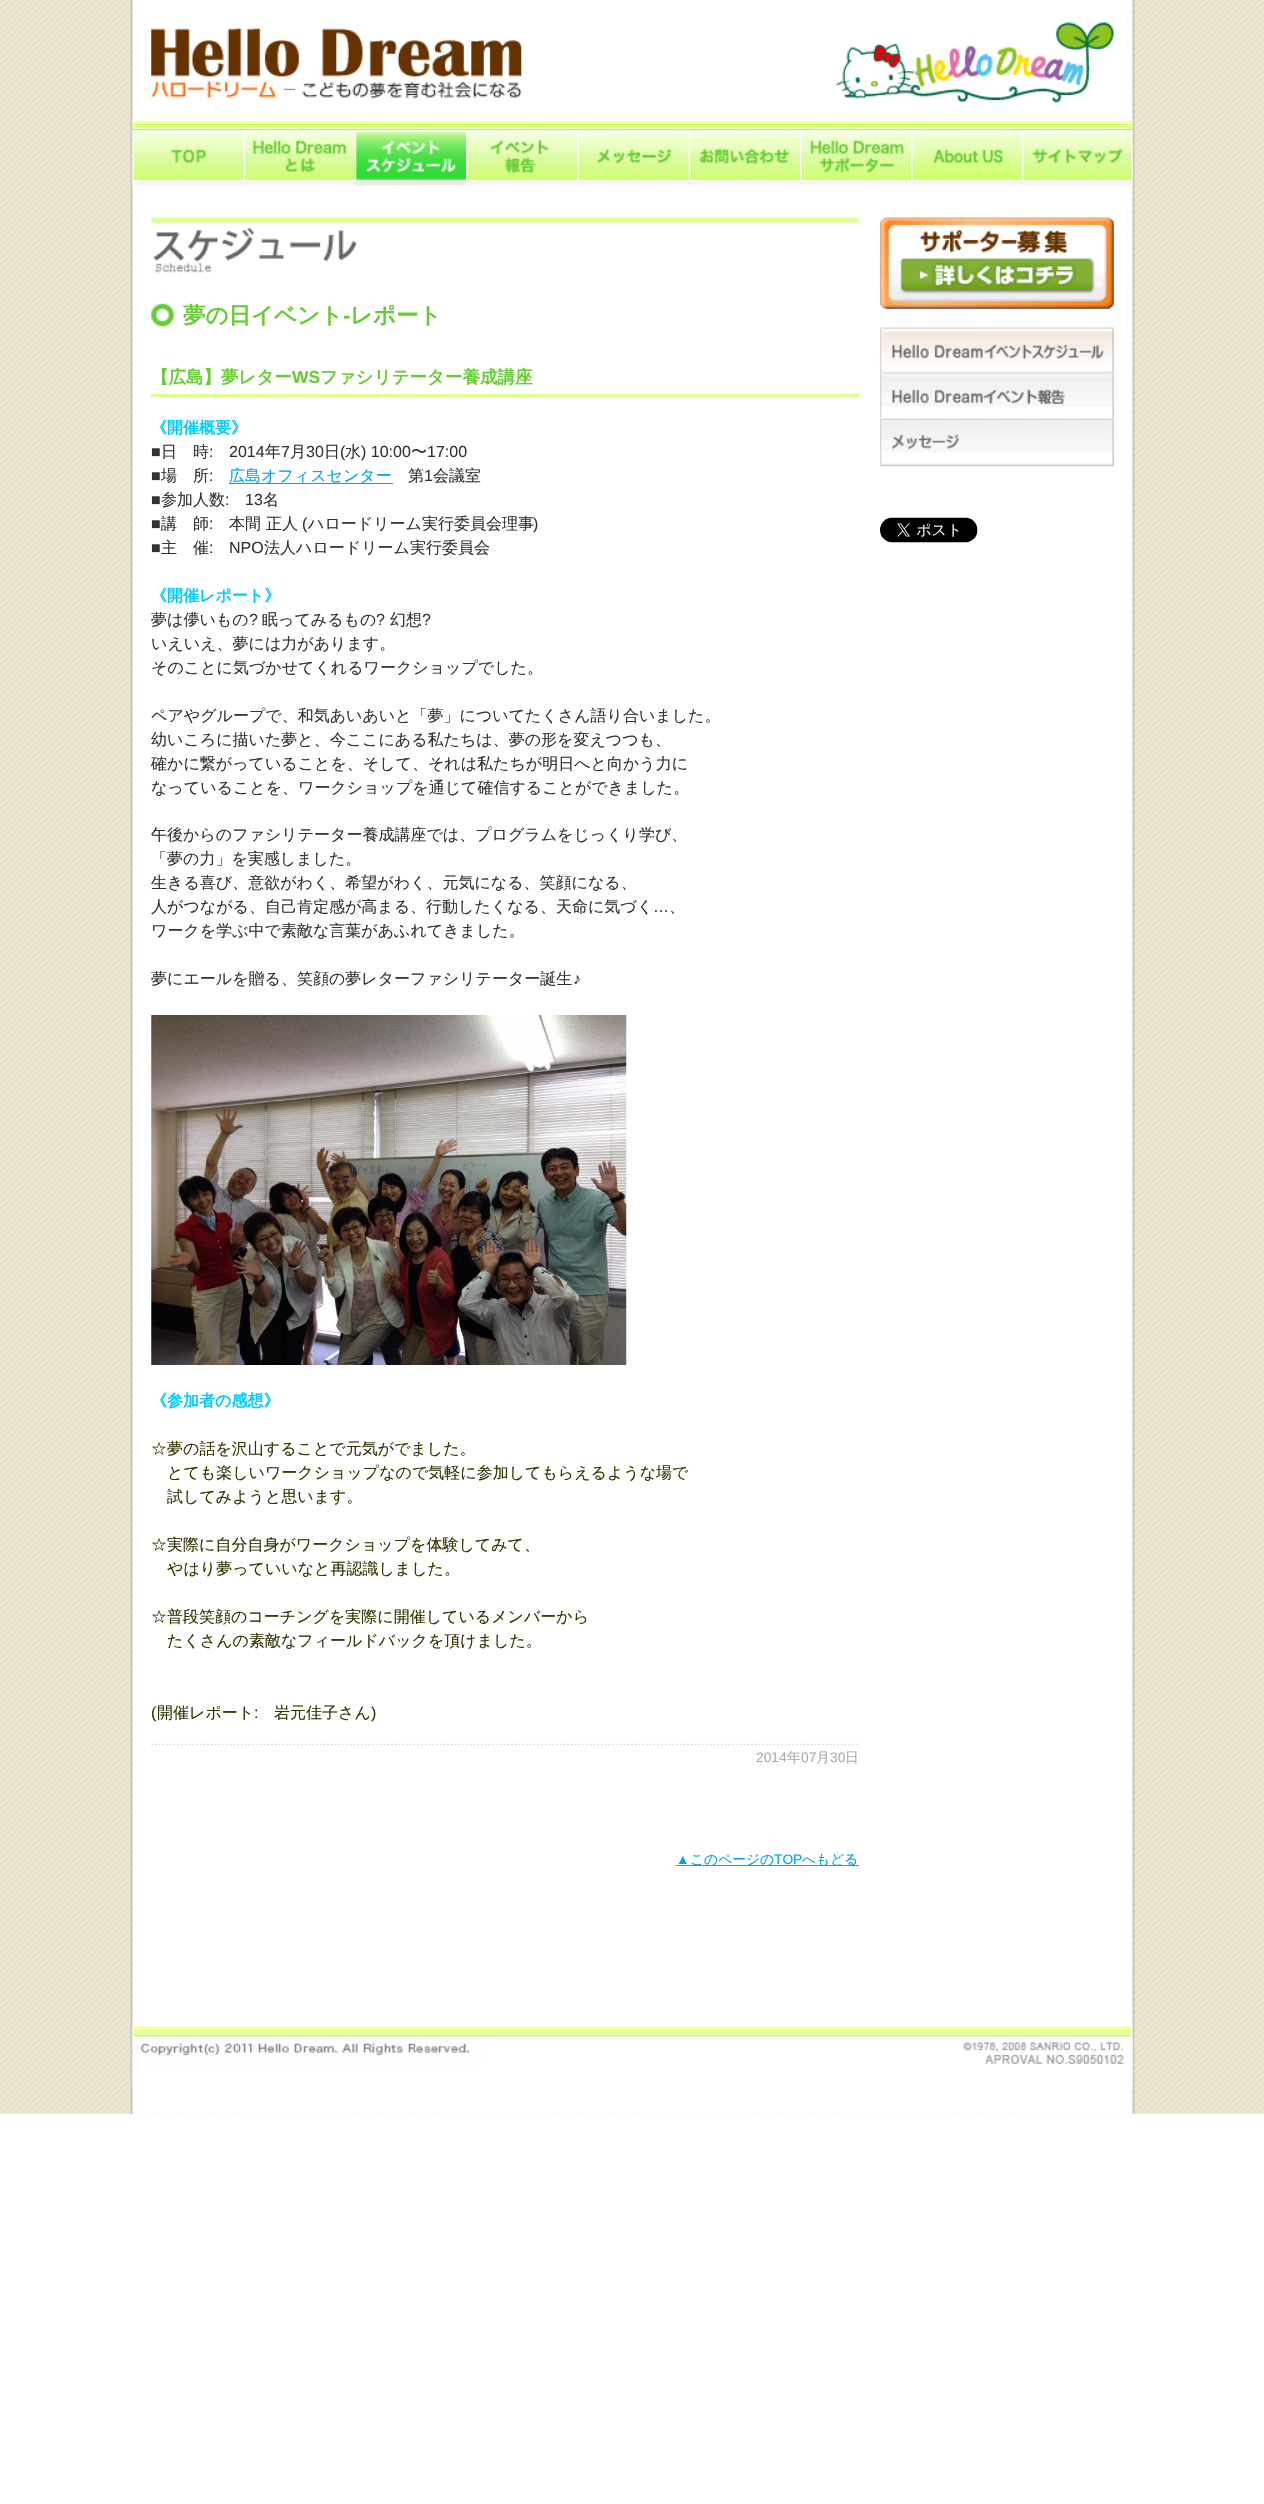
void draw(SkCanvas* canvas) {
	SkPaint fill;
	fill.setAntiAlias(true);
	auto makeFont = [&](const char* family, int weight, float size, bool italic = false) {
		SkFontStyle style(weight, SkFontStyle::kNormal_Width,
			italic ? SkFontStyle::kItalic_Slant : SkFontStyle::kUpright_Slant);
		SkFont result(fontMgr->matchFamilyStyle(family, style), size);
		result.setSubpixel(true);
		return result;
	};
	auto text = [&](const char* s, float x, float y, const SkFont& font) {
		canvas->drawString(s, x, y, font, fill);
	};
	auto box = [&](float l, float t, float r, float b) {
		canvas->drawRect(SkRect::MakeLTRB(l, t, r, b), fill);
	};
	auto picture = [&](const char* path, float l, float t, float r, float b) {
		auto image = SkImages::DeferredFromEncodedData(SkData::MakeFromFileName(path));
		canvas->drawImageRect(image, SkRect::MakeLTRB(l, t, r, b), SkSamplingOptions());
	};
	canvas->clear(0xFFFFFFFF);
	picture("image0.png", 0, 0, 1264, 2114);
	picture("image1.png", 130, 0, 1135, 2114);
	picture("image2.png", 132, 118, 1133, 131);
	picture("image3.png", 151, 28, 522, 99);
	picture("image4.png", 836, 22, 1114, 103);
	picture("image5.png", 132, 131, 244, 187);
	picture("image6.png", 243, 132, 355, 186);
	picture("image7.png", 355, 131, 467, 186);
	picture("image8.png", 466, 132, 578, 186);
	picture("image9.png", 577, 132, 689, 186);
	picture("image10.png", 688, 132, 800, 186);
	picture("image11.png", 800, 132, 912, 186);
	picture("image12.png", 911, 132, 1023, 186);
	picture("image13.png", 1022, 131, 1133, 187);
	picture("image14.png", 151, 217, 859, 273);
	picture("image15.png", 151, 303, 174, 327);
	fill.setColor(0xFFDAFF8F);
	box(151, 394, 859, 397);
	fill.setColor(0xFF00A5E5);
	box(229, 483, 393, 484);
	picture("image16.png", 151, 1015, 627, 1365);
	picture("image17.png", 151, 1743, 858, 1745);
	box(676, 1865, 859, 1866);
	picture("image18.png", 880, 217, 1114, 309);
	picture("image19.png", 880, 327, 1114, 374);
	picture("image20.png", 880, 373, 1114, 420);
	picture("image21.png", 880, 420, 1114, 467);
	picture("image22.png", 880, 517, 978, 543);
	picture("image23.png", 132, 2026, 1133, 2089);
	auto font1 = makeFont("WenQuanYi Zen Hei", 700, 22.5f);
	fill.setColor(0xFF66CC33);
	text("夢の日イベント", 183, 323, font1);
	auto font2 = makeFont("Liberation Sans", 700, 22.5f);
	text("-", 343, 323, font2);
	text("レポート", 350, 323, font1);
	auto font3 = makeFont("WenQuanYi Zen Hei", 700, 17.5f);
	text("【広島】夢レター", 151, 383, font3);
	auto font4 = makeFont("Liberation Sans", 700, 17.5f);
	text("WS", 292, 383, font4);
	text("ファシリテーター養成講座", 320, 383, font3);
	auto font5 = makeFont("WenQuanYi Zen Hei", 700, 16);
	fill.setColor(0xFF00CCFF);
	text("《開催概要》", 151, 433, font5);
	auto font6 = makeFont("Liberation Sans", 400, 16);
	fill.setColor(0xFF333333);
	text("■", 151, 457, font6);
	auto font7 = makeFont("WenQuanYi Zen Hei", 500, 16);
	text("日　時", 161, 457, font7);
	text(":", 209, 457, font6);
	text("2014", 229, 457, font6);
	text("年", 265, 457, font7);
	text("7", 281, 457, font6);
	text("月", 290, 457, font7);
	text("30", 306, 457, font6);
	text("日", 324, 457, font7);
	text("(", 340, 457, font6);
	text("水", 345, 457, font7);
	text(") 10:00", 361, 457, font6);
	text("〜", 411, 457, font7);
	text("17:00", 427, 457, font6);
	text("■", 151, 481, font6);
	text("場　所", 161, 481, font7);
	text(":", 209, 481, font6);
	fill.setColor(0xFF00A5E5);
	text("広島オフィスセンター", 229, 481, font7);
	fill.setColor(0xFF333333);
	text("第", 408, 481, font7);
	text("1", 424, 481, font6);
	text("会議室", 433, 481, font7);
	text("■", 151, 505, font6);
	text("参加人数", 161, 505, font7);
	text(":", 225, 505, font6);
	text("13", 245, 505, font6);
	text("名", 263, 505, font7);
	text("■", 151, 529, font6);
	text("講　師", 161, 529, font7);
	text(":", 209, 529, font6);
	text("本間", 229, 529, font7);
	text("正人", 266, 529, font7);
	text("(", 302, 529, font6);
	text("ハロードリーム実行委員会理事", 308, 529, font7);
	text(")", 533, 529, font6);
	text("■", 151, 553, font6);
	text("主　催", 161, 553, font7);
	text(":", 209, 553, font6);
	text("NPO", 229, 553, font6);
	text("法人ハロードリーム実行委員会", 264, 553, font7);
	fill.setColor(0xFF00CCFF);
	text("《開催レポート》", 151, 601, font5);
	fill.setColor(0xFF333333);
	text("夢は儚いもの", 151, 625, font7);
	text("?", 249, 625, font6);
	text("眠ってみるもの", 262, 625, font7);
	text("?", 376, 625, font6);
	text("幻想", 390, 625, font7);
	text("?", 422, 625, font6);
	text("いえいえ、夢には力があります。", 151, 649, font7);
	text("そのことに気づかせてくれるワークショップでした。", 151, 673, font7);
	text("ペアやグループで、和気あいあいと「夢」についてたくさん語り合いました。", 151, 721, font7);
	text("幼いころに描いた夢と、今ここにある私たちは、夢の形を変えつつも、", 151, 745, font7);
	text("確かに繋がっていることを、そして、それは私たちが明日へと向かう力に", 151, 769, font7);
	text("なっていることを、ワークショップを通じて確信することができました。", 151, 793, font7);
	text("午後からのファシリテーター養成講座では、プログラムをじっくり学び、", 151, 840, font7);
	text("「夢の力」を実感しました。", 151, 864, font7);
	text("生きる喜び、意欲がわく、希望がわく、元気になる、笑顔になる、", 151, 888, font7);
	text("人がつながる、自己肯定感が高まる、行動したくなる、天命に気づく", 151, 912, font7);
	text("…", 653, 912, font6);
	text("、", 669, 912, font7);
	text("ワークを学ぶ中で素敵な言葉があふれてきました。", 151, 936, font7);
	text("夢にエールを贈る、笑顔の夢レターファシリテーター誕生", 151, 984, font7);
	text("♪", 573, 984, font6);
	fill.setColor(0xFF00CCFF);
	text("《参加者の感想》", 151, 1406, font5);
	fill.setColor(0xFF333300);
	text("☆夢の話を沢山することで元気がでました。", 151, 1454, font7);
	text("とても楽しいワークショップなので気軽に参加してもらえるような場で", 167, 1478, font7);
	text("試してみようと思います。", 167, 1502, font7);
	text("☆実際に自分自身がワークショップを体験してみて、", 151, 1550, font7);
	text("やはり夢っていいなと再認識しました。", 167, 1574, font7);
	text("☆普段笑顔のコーチングを実際に開催しているメンバーから", 151, 1622, font7);
	text("たくさんの素敵なフィールドバックを頂けました。", 167, 1646, font7);
	text("(", 151, 1718, font6);
	text("開催レポート", 157, 1718, font7);
	text(":", 254, 1718, font6);
	text("岩元佳子さん", 274, 1718, font7);
	text(")", 371, 1718, font6);
	auto font8 = makeFont("Liberation Sans", 400, 13.75f);
	fill.setColor(0xFFAAAAAA);
	text("2014", 756, 1762, font8);
	auto font9 = makeFont("WenQuanYi Zen Hei", 500, 13.75f);
	text("年", 787, 1762, font9);
	text("07", 801, 1762, font8);
	text("月", 816, 1762, font9);
	text("30", 830, 1762, font8);
	text("日", 845, 1762, font9);
	fill.setColor(0xFF00A5E5);
	text("▲", 676, 1864, font8);
	text("このページの", 690, 1864, font9);
	text("TOP", 774, 1864, font8);
	text("へもどる", 802, 1864, font9);
}
